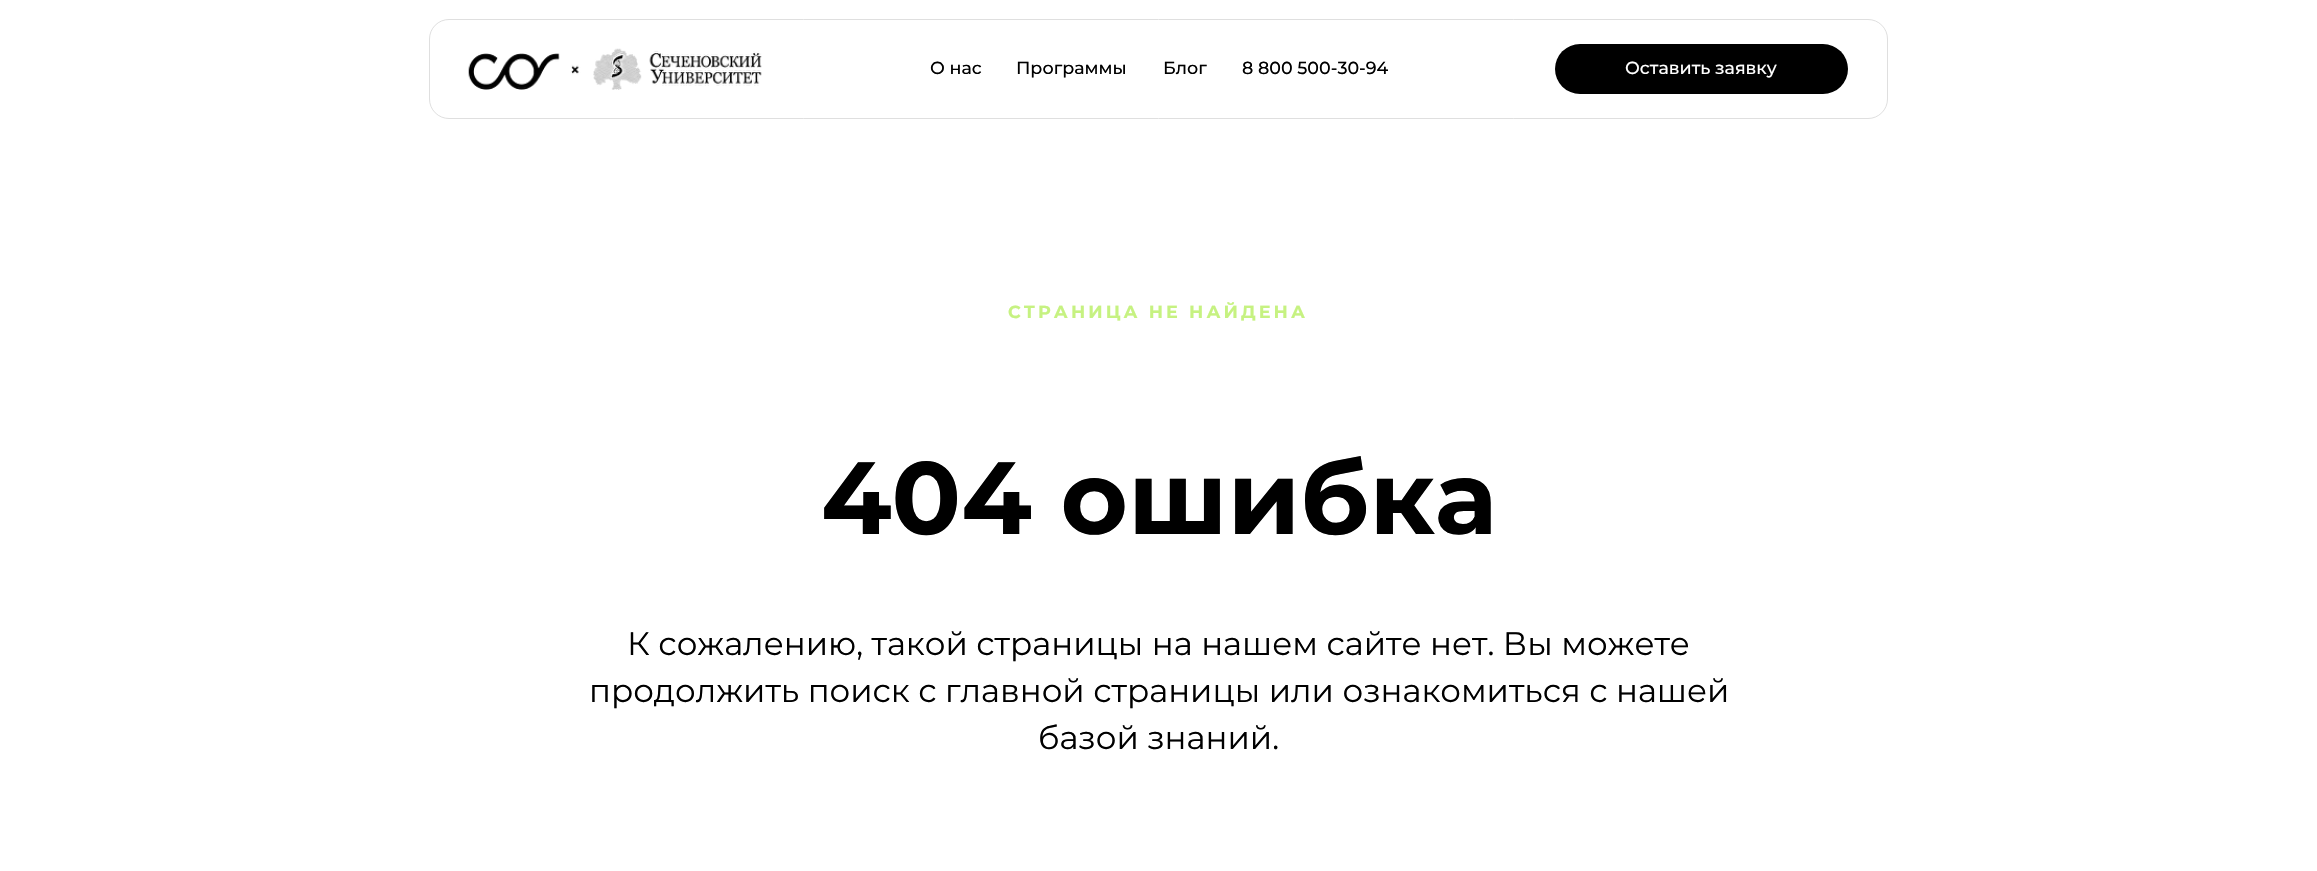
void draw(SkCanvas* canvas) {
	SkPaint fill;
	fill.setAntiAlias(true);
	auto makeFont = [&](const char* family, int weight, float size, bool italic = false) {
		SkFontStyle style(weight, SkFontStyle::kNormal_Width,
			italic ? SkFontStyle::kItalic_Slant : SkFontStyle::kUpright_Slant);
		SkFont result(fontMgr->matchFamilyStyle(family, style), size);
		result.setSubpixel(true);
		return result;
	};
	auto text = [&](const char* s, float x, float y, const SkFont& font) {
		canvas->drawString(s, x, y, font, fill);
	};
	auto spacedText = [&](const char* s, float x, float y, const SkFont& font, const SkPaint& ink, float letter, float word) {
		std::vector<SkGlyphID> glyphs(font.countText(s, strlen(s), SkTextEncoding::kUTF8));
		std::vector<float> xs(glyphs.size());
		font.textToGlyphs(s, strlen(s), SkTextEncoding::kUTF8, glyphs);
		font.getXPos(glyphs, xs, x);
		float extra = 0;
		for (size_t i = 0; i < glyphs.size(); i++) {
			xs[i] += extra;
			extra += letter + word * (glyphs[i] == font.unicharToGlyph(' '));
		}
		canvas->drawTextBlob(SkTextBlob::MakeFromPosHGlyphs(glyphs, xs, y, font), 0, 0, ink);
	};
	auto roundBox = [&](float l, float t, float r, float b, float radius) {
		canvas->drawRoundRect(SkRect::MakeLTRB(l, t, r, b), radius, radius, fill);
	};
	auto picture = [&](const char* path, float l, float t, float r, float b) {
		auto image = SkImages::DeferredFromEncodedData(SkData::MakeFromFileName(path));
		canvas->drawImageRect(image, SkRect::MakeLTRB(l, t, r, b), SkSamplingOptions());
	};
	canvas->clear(0xFFFFFFFF);
	fill.setStyle(SkPaint::kStroke_Style);
	fill.setStrokeWidth(1);
	fill.setColor(0xFFDFDFDF);
	canvas->drawRoundRect(SkRect::MakeLTRB(429.5f, 19.5f, 1887.5f, 118.5f), 19.5f, 19.5f, fill);
	picture("image0.png", 468, 48, 762, 90);
	fill.setStyle(SkPaint::kFill_Style);
	fill.setColor(0xFF000000);
	roundBox(1555, 44, 1848, 94, 25);
	auto font1 = makeFont("Montserrat", 500, 17.5f);
	text("О нас", 930, 74, font1);
	text("Программы", 1016, 74, font1);
	text("Блог", 1163, 74, font1);
	text("8 800 500-30-94", 1242, 74, font1);
	fill.setColor(0xFFFFFFFF);
	text("Оставить заявку", 1625, 74, font1);
	auto font2 = makeFont("Montserrat", 700, 17.5f);
	fill.setColor(0xFFC6F281);
	spacedText("СТРАНИЦА НЕ НАЙДЕНА", 1008, 318, font2, fill, 3.1f, 0);
	auto font3 = makeFont("Montserrat", 700, 102.5f);
	fill.setColor(0xFF000000);
	text("404 ошибка", 821, 534, font3);
	auto font4 = makeFont("Montserrat", 400, 32.5f);
	text("К сожалению, такой страницы на нашем сайте нет. Вы можете", 627, 655, font4);
	text("продолжить поиск с главной страницы или ознакомиться с нашей", 589, 702, font4);
	text("базой знаний.", 1038, 749, font4);
}
